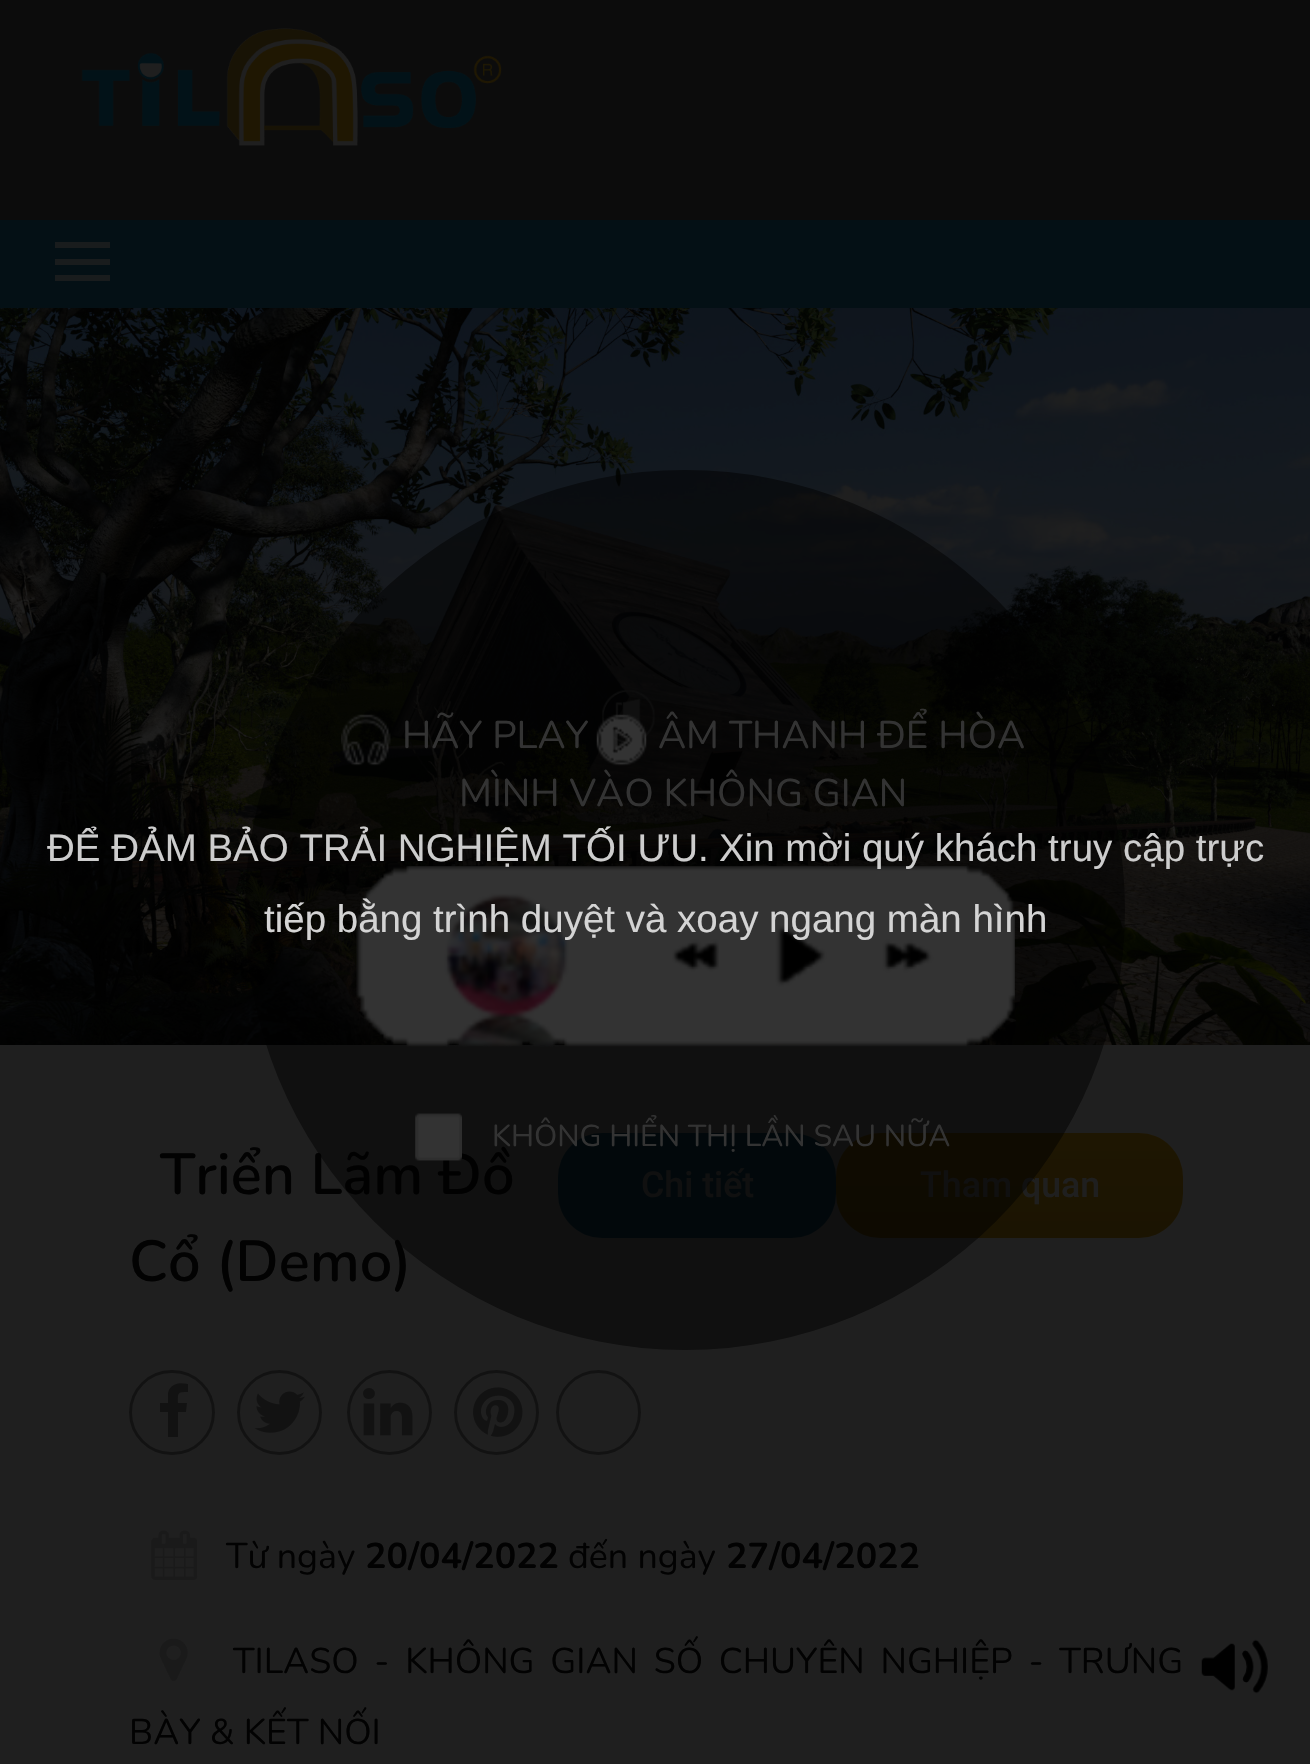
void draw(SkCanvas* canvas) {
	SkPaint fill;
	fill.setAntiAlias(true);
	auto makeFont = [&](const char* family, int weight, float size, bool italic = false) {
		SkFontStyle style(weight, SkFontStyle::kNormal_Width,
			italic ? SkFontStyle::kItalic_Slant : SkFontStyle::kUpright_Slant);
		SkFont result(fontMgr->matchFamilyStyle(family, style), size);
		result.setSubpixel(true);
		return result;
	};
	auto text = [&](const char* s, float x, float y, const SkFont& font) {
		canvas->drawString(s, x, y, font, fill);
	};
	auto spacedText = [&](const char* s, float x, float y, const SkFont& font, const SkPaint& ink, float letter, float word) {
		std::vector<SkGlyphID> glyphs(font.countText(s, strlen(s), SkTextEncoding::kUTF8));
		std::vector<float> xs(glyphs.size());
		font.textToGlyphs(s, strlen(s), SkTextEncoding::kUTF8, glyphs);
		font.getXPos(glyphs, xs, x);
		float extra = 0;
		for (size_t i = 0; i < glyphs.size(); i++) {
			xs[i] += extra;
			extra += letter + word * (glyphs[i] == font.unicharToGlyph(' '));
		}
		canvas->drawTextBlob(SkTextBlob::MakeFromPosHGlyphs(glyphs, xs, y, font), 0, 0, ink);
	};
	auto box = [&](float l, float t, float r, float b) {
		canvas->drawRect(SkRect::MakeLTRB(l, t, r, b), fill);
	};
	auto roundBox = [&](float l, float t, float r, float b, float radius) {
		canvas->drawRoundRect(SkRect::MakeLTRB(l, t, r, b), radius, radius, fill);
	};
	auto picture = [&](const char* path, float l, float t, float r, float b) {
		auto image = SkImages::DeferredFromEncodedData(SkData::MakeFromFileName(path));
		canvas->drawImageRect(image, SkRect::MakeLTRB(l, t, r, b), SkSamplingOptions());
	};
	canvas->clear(0xFF041015);
	fill.setColor(0xFF0C0C0C);
	box(0, 0, 1310, 220);
	picture("image0.png", 81, 28, 502, 146);
	fill.setColor(0xFF191C1D);
	box(55, 242, 110, 248);
	box(55, 259, 110, 265);
	box(55, 275, 110, 281);
	fill.setColor(0xFF1F1F1F);
	box(0, 1045, 1310, 1764);
	picture("image1.png", 0, 308, 1310, 1045);
	picture("image2.png", 602, 690, 655, 743);
	picture("image7.png", 1201, 1639, 1268, 1694);
	fill.setColor(0xFF041015);
	roundBox(558, 1133, 836, 1238, 44);
	{
		const SkColor colors[] = {0xFF1E1602, 0xFF1B1402};
		const float stops[] = {0, 1};
		const SkPoint ends[] = {{1009, 1133}, {1009, 1238}};
		fill.setShader(SkGradientShader::MakeLinear(ends, colors, stops, 2, SkTileMode::kClamp));
		fill.setAlpha(255);
	}
	roundBox(836, 1133, 1183, 1238, 44);
	fill.setStyle(SkPaint::kStroke_Style);
	fill.setStrokeWidth(3);
	fill.setShader(nullptr);
	fill.setColor(0xFF121212);
	canvas->drawRoundRect(SkRect::MakeLTRB(130.5f, 1371.5f, 213.5f, 1453.5f), 41, 41, fill);
	fill.setStyle(SkPaint::kFill_Style);
	canvas->drawPath(SkPathBuilder().moveTo(188, 1384).lineTo(188, 1392).cubicTo(177, 1392, 178, 1393, 178, 1403).lineTo(187, 1403).lineTo(186, 1412).lineTo(178, 1412).lineTo(178, 1437).lineTo(168, 1437).lineTo(168, 1412).lineTo(160, 1412).lineTo(160, 1403).lineTo(168, 1403).lineTo(168, 1393).cubicTo(170, 1383, 180, 1382, 188, 1384).close().detach(), fill);
	fill.setStyle(SkPaint::kStroke_Style);
	canvas->drawCircle(279.5f, 1412.5f, 41, fill);
	picture("image8.png", 254, 1391, 305, 1433);
	canvas->drawCircle(389.5f, 1412.5f, 41, fill);
	picture("image9.png", 363, 1388, 413, 1436);
	canvas->drawCircle(496.5f, 1412.5f, 41, fill);
	picture("image10.png", 473, 1387, 523, 1437);
	canvas->drawCircle(598.5f, 1412.5f, 41, fill);
	picture("image11.png", 151, 1530, 198, 1580);
	picture("image12.png", 159, 1638, 188, 1681);
	auto font1 = makeFont("Nunito", 600, 57.75f);
	fill.setStyle(SkPaint::kFill_Style);
	fill.setColor(0xFF020202);
	text("Triển Lãm Đồ", 160, 1194, font1);
	auto font2 = makeFont("Roboto", 500, 35.75f);
	fill.setColor(0xFF1F1F1F);
	text("Chi tiết", 641, 1197, font2);
	text("Tham quan", 920, 1197, font2);
	fill.setColor(0xFF020202);
	text("Cổ (Demo)", 129, 1281, font1);
	fill.setColor(0x80000000);
	canvas->drawCircle(685, 910, 440, fill);
	auto font3 = makeFont("Nunito", 400, 30.25f);
	fill.setColor(0xFF333333);
	text("KHÔNG HIỂN THỊ LẦN SAU NỮA", 492, 1146, font3);
	picture("image6.png", 415, 1113, 462, 1161);
	picture("image5.png", 356, 866, 1015, 1047);
	auto font4 = makeFont("Nunito", 400, 38.5f);
	text("MÌNH VÀO KHÔNG GIAN", 459, 806, font4);
	text("ÂM THANH ĐỂ HÒA", 658, 748, font4);
	picture("image4.png", 596, 714, 647, 766);
	text("HÃY PLAY", 402, 748, font4);
	picture("image3.png", 341, 714, 391, 766);
	auto font5 = makeFont("Nunito", 400, 35.75f);
	fill.setColor(0xFF020202);
	text("Từ ngày", 226, 1568, font5);
	auto font6 = makeFont("Nunito", 700, 35.75f);
	text("20/04/2022", 365, 1568, font6);
	text("đến ngày", 568, 1568, font5);
	text("27/04/2022", 726, 1568, font6);
	spacedText("TILASO - KHÔNG GIAN SỐ CHUYÊN NGHIỆP - TRƯNG", 233, 1673, font5, fill, 0, 6.5f);
	text("BÀY & KẾT NỐI", 129, 1744, font5);
	auto font7 = makeFont("Liberation Sans", 400, 38.5f);
	fill.setColor(0xFFCDCDCD);
	text("ĐỂ ĐẢM BẢO TRẢI NGHIỆM TỐI ƯU.", 47, 861, font7);
	text("Xin mời quý khách truy cập trực", 719, 861, font7);
	fill.setColor(0xFFD4D4D4);
	text("tiếp bằng trình duyệt và xoay ngang màn hình", 264, 932, font7);
}
